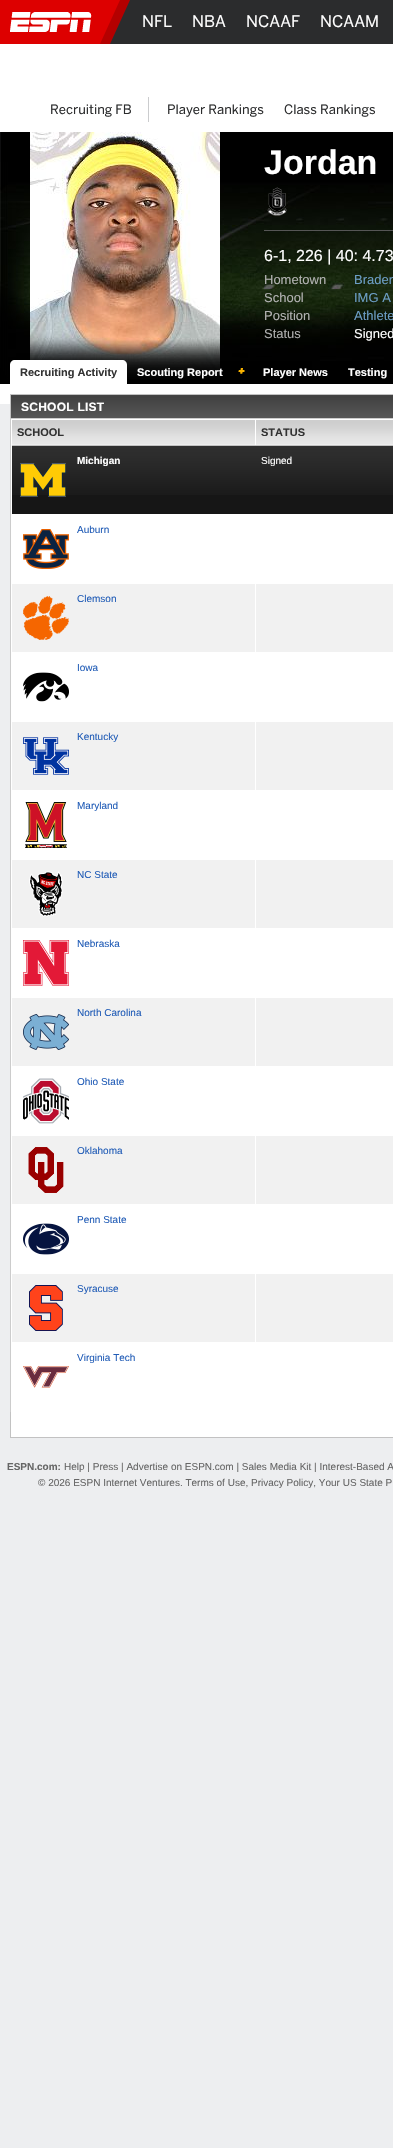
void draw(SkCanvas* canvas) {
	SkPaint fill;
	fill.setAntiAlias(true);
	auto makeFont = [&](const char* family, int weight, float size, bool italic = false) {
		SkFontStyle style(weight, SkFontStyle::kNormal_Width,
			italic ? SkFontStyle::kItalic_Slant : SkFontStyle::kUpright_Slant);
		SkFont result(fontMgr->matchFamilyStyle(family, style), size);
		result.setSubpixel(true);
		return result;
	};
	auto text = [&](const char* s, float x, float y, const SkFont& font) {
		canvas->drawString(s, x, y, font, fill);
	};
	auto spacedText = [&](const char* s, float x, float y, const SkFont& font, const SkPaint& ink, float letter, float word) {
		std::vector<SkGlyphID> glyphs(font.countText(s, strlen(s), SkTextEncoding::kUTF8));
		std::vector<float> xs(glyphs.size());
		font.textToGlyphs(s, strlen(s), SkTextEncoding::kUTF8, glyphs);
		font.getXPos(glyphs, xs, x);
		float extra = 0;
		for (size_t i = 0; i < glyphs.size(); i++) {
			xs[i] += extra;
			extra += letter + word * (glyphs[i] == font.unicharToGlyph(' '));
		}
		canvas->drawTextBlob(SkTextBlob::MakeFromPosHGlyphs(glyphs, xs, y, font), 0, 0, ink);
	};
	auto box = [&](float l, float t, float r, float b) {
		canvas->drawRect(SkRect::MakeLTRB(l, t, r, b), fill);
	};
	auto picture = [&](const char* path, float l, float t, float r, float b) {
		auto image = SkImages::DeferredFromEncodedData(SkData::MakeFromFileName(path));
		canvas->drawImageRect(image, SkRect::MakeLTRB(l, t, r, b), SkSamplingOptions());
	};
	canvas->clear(0xFFEDEEF0);
	fill.setColor(0xFFFFFFFF);
	box(0, 44, 393, 132);
	fill.setColor(0xFF2B2C2D);
	box(110, 0, 393, 44);
	fill.setColor(0xFFB40000);
	canvas->drawPath(SkPathBuilder().moveTo(0, 0).lineTo(130, 0).lineTo(110, 44).lineTo(-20, 44).close().detach(), fill);
	fill.setColor(0xFFDD0000);
	canvas->drawPath(SkPathBuilder().moveTo(-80, 0).lineTo(120, 0).lineTo(100, 44).lineTo(-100, 44).close().detach(), fill);
	picture("image0.png", 10, 12, 92, 32);
	fill.setColor(0xFFCBCCCE);
	box(148, 97, 149, 122);
	picture("image1.png", 0, 132, 393, 162);
	picture("image2.png", 0, 162, 393, 384);
	picture("image3.png", 30, 132, 220, 379);
	picture("image4.png", 267, 187, 287, 216);
	fill.setColor(0xFF565656);
	box(264, 230, 393, 231);
	fill.setColor(0xFFFFFFFF);
	box(0, 384, 393, 404);
	picture("image7.png", 11, 395, 393, 418);
	fill.setColor(0xFFC2C2C2);
	box(10, 394, 393, 395);
	box(10, 394, 11, 418);
	fill.setColor(0xFFFFFFFF);
	box(11, 419, 393, 1437);
	fill.setColor(0xFFC2C2C2);
	box(10, 1437, 393, 1438);
	box(10, 1412, 11, 1438);
	fill.setColor(0xFFCCCCCC);
	box(10, 418, 393, 419);
	box(10, 418, 11, 1412);
	fill.setColor(0xFFEEEEEE);
	box(12, 444, 255, 445);
	picture("image8.png", 12, 420, 255, 444);
	fill.setColor(0xFFC2C2C2);
	box(255, 445, 393, 446);
	fill.setColor(0xFFFFFFFF);
	box(255, 445, 256, 446);
	fill.setColor(0xFFC2C2C2);
	box(11, 445, 256, 446);
	fill.setColor(0xFFFFFFFF);
	box(11, 445, 12, 446);
	fill.setColor(0xFFEEEEEE);
	box(256, 444, 393, 445);
	picture("image9.png", 256, 420, 393, 444);
	fill.setColor(0xFF161616);
	box(12, 495, 393, 514);
	picture("image10.png", 12, 446, 256, 495);
	picture("image11.png", 20, 463, 66, 497);
	picture("image12.png", 256, 446, 393, 495);
	picture("image13.png", 23, 529, 69, 569);
	fill.setColor(0xFFF1F1F1);
	box(12, 584, 255, 652);
	picture("image14.png", 23, 596, 69, 640);
	box(256, 584, 393, 652);
	picture("image15.png", 23, 672, 69, 702);
	box(12, 722, 255, 790);
	picture("image16.png", 23, 737, 69, 775);
	box(256, 722, 393, 790);
	picture("image17.png", 25, 802, 67, 848);
	box(12, 860, 255, 928);
	picture("image18.png", 29, 871, 63, 917);
	box(256, 860, 393, 928);
	picture("image19.png", 23, 940, 69, 986);
	box(12, 998, 255, 1066);
	picture("image20.png", 23, 1014, 69, 1050);
	box(256, 998, 393, 1066);
	picture("image21.png", 23, 1078, 69, 1124);
	box(12, 1136, 255, 1204);
	picture("image22.png", 28, 1147, 64, 1193);
	box(256, 1136, 393, 1204);
	picture("image23.png", 23, 1223, 69, 1255);
	box(12, 1274, 255, 1342);
	picture("image24.png", 29, 1285, 63, 1331);
	box(256, 1274, 393, 1342);
	picture("image25.png", 23, 1366, 69, 1388);
	auto font1 = makeFont("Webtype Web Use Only", 400, 16);
	fill.setColor(0xFFFFFFFF);
	text("NFL", 142, 27, font1);
	text("NBA", 192, 27, font1);
	text("NCAAF", 246, 27, font1);
	text("NCAAM", 320, 27, font1);
	auto font2 = makeFont("Webtype Web Use Only", 400, 13);
	fill.setColor(0xFF2B2C2D);
	text("Recruiting FB", 50, 114, font2);
	text("Player Rankings", 167, 114, font2);
	text("Class Rankings", 284, 114, font2);
	auto font3 = makeFont("Liberation Sans", 700, 34);
	fill.setColor(0xFFFFFFFF);
	text("Jordan", 264, 174, font3);
	auto font4 = makeFont("Liberation Sans", 400, 16);
	text("6-1, 226 | 40: 4.73", 264, 261, font4);
	auto font5 = makeFont("Liberation Sans", 400, 13);
	fill.setColor(0xFFB2B2B2);
	text("Hometown", 264, 284, font5);
	fill.setColor(0xFF6C9EC6);
	text("Braden", 354, 284, font5);
	fill.setColor(0xFFB2B2B2);
	text("School", 264, 302, font5);
	fill.setColor(0xFF6C9EC6);
	text("IMG A", 354, 302, font5);
	fill.setColor(0xFFB2B2B2);
	text("Position", 264, 320, font5);
	fill.setColor(0xFF6C9EC6);
	text("Athlete", 354, 320, font5);
	fill.setColor(0xFFB2B2B2);
	text("Status", 264, 338, font5);
	fill.setColor(0xFFFFFFFF);
	text("Signed", 354, 338, font5);
	picture("image5.png", 0, 281, 299, 384);
	canvas->drawPath(SkPathBuilder().moveTo(15, 360).lineTo(122, 360).cubicTo(125, 360, 127, 362, 127, 365).lineTo(127, 384).lineTo(10, 384).lineTo(10, 365).cubicTo(10, 362, 12, 360, 15, 360).close().detach(), fill);
	auto font6 = makeFont("Liberation Sans", 700, 11);
	fill.setColor(0xFF333333);
	text("Recruiting Activity", 20, 376, font6);
	fill.setColor(0xFFFFFFFF);
	text("Scouting Report", 137, 376, font6);
	picture("image6.png", 238, 368, 245, 374);
	text("Player News", 263, 376, font6);
	text("Testing", 348, 376, font6);
	auto font7 = makeFont("Liberation Sans", 700, 12);
	spacedText("SCHOOL LIST", 21, 411, font7, fill, 0.25f, 0);
	fill.setColor(0xFF333333);
	text("SCHOOL", 17, 436, font6);
	text("STATUS", 261, 436, font6);
	auto font8 = makeFont("Liberation Sans", 700, 10);
	fill.setColor(0xFFFFFFFF);
	text("Michigan", 77, 464, font8);
	auto font9 = makeFont("Liberation Sans", 400, 10);
	text("Signed", 261, 464, font9);
	fill.setColor(0xFF225DB7);
	text("Auburn", 77, 533, font9);
	text("Clemson", 77, 602, font9);
	text("Iowa", 77, 671, font9);
	text("Kentucky", 77, 740, font9);
	text("Maryland", 77, 809, font9);
	text("NC State", 77, 878, font9);
	text("Nebraska", 77, 947, font9);
	text("North Carolina", 77, 1016, font9);
	text("Ohio State", 77, 1085, font9);
	text("Oklahoma", 77, 1154, font9);
	text("Penn State", 77, 1223, font9);
	text("Syracuse", 77, 1292, font9);
	text("Virginia Tech", 77, 1361, font9);
	fill.setColor(0xFF666666);
	text("ESPN.com:", 7, 1470, font8);
	text("Help | Press | Advertise on ESPN.com | Sales Media Kit | Interest-Based A", 64, 1470, font9);
	text("© 2026 ESPN Internet Ventures. Terms of Use, Privacy Policy, Your US State P", 38, 1486, font9);
}
